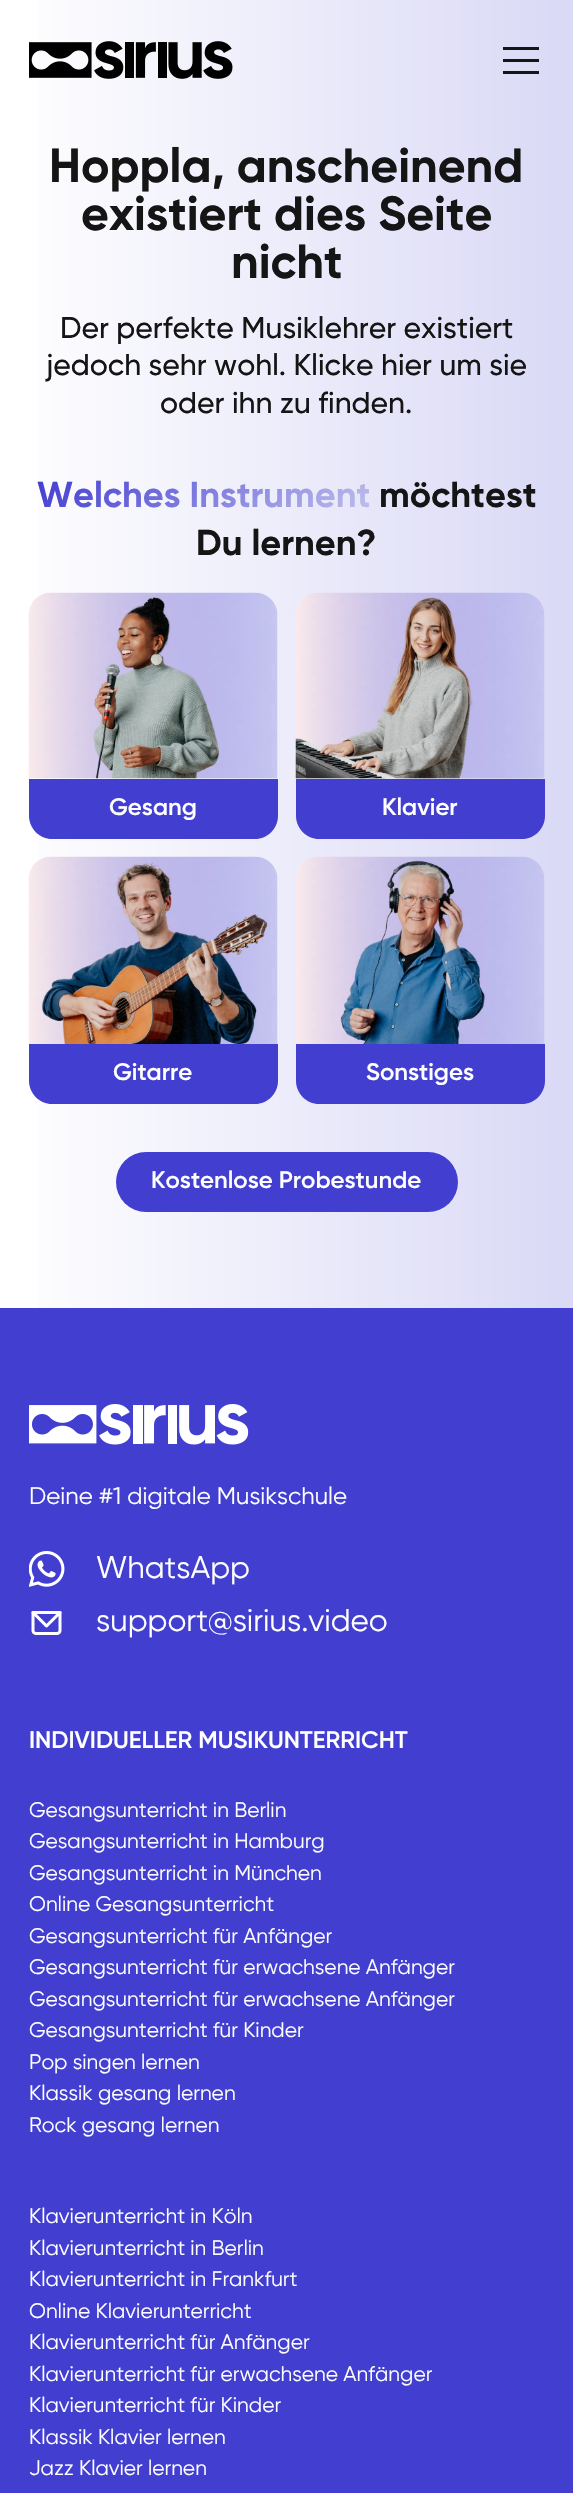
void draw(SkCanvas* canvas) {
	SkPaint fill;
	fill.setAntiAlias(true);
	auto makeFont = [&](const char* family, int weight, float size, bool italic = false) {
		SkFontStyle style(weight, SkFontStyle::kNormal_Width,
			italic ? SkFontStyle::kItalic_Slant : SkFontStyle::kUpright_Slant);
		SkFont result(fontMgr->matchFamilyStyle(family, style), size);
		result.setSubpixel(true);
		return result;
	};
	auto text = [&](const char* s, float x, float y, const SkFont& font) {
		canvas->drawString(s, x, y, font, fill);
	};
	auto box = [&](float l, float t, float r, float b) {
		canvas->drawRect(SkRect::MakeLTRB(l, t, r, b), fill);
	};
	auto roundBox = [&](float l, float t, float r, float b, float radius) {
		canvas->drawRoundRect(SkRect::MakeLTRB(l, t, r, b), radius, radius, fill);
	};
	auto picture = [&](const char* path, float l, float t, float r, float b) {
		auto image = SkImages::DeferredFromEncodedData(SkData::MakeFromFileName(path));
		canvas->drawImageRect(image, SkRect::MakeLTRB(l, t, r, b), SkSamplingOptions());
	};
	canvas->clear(0xFFFFFFFF);
	{
		const SkColor colors[] = {0xFFDAD9F6, 0xFFFFFFFF};
		const float stops[] = {0, 1};
		const SkPoint ends[] = {{573, 654}, {0, 654}};
		fill.setShader(SkGradientShader::MakeLinear(ends, colors, stops, 2, SkTileMode::kClamp));
		fill.setAlpha(255);
	}
	box(38, 0, 573, 1308);
	picture("image0.png", 29, 41, 233, 79);
	fill.setShader(nullptr);
	fill.setColor(0xFF151515);
	box(503, 47, 539, 50);
	box(503, 59, 539, 62);
	box(503, 71, 539, 74);
	picture("image1.png", 28, 592, 278, 779);
	fill.setColor(0xFF413ED0);
	canvas->drawPath(SkPathBuilder().moveTo(29, 779).lineTo(278, 779).lineTo(278, 816).cubicTo(278, 828.5f, 267.5f, 839, 255, 839).lineTo(52, 839).cubicTo(39.5f, 839, 29, 828.5f, 29, 816).close().detach(), fill);
	picture("image2.png", 295, 592, 545, 779);
	canvas->drawPath(SkPathBuilder().moveTo(296, 779).lineTo(545, 779).lineTo(545, 816).cubicTo(545, 828.5f, 534.5f, 839, 522, 839).lineTo(319, 839).cubicTo(306.5f, 839, 296, 828.5f, 296, 816).close().detach(), fill);
	picture("image3.png", 28, 856, 278, 1044);
	canvas->drawPath(SkPathBuilder().moveTo(29, 1044).lineTo(278, 1044).lineTo(278, 1081).cubicTo(278, 1093.5f, 267.5f, 1104, 255, 1104).lineTo(52, 1104).cubicTo(39.5f, 1104, 29, 1093.5f, 29, 1081).close().detach(), fill);
	picture("image4.png", 296, 856, 545, 1044);
	canvas->drawPath(SkPathBuilder().moveTo(296, 1044).lineTo(545, 1044).lineTo(545, 1081).cubicTo(545, 1093.5f, 534.5f, 1104, 522, 1104).lineTo(319, 1104).cubicTo(306.5f, 1104, 296, 1093.5f, 296, 1081).close().detach(), fill);
	roundBox(116, 1152, 458, 1212, 30);
	box(0, 1308, 573, 2493);
	picture("image5.png", 29, 1404, 249, 1445);
	picture("image6.png", 29, 1551, 65, 1587);
	picture("image7.png", 31, 1611, 62, 1635);
	auto font1 = makeFont("Gilroy", 700, 48);
	fill.setColor(0xFF151515);
	text("Hoppla, anscheinend", 49, 182, font1);
	text("existiert dies Seite", 81, 230, font1);
	text("nicht", 231, 278, font1);
	auto font2 = makeFont("Gilroy", 500, 30);
	text("Der perfekte Musiklehrer existiert", 60, 338, font2);
	text("jedoch sehr wohl. Klicke hier um sie", 46, 375, font2);
	text("oder ihn zu finden.", 160, 413, font2);
	auto font3 = makeFont("Gilroy", 700, 36);
	{
		const SkColor colors[] = {0xFF423DD1, 0xFFBFBFEC};
		const float stops[] = {0, 1};
		const SkPoint ends[] = {{111, 404}, {296, 589}};
		fill.setShader(SkGradientShader::MakeLinear(ends, colors, stops, 2, SkTileMode::kClamp));
		fill.setAlpha(255);
	}
	text("Welches Instrument", 37, 507, font3);
	fill.setShader(nullptr);
	fill.setColor(0xFF151515);
	text("möchtest", 379, 507, font3);
	text("Du lernen?", 196, 555, font3);
	auto font4 = makeFont("Gilroy", 600, 24);
	fill.setColor(0xFFFFFFFF);
	text("Gesang", 109, 815, font4);
	text("Klavier", 382, 815, font4);
	text("Gitarre", 113, 1080, font4);
	text("Sonstiges", 366, 1080, font4);
	text("Kostenlose Probestunde", 151, 1188, font4);
	auto font5 = makeFont("Gilroy", 400, 24);
	text("Deine #1 digitale Musikschule", 29, 1504, font5);
	auto font6 = makeFont("Gilroy", 400, 31.25f);
	text("WhatsApp", 96, 1578, font6);
	text("support@sirius.video", 96, 1631, font6);
	text("INDIVIDUELLER MUSIKUNTERRICHT", 29, 1748, font4);
	auto font7 = makeFont("Gilroy", 400, 21);
	text("Gesangsunterricht in Berlin", 29, 1817, font7);
	text("Gesangsunterricht in Hamburg", 29, 1848, font7);
	text("Gesangsunterricht in München", 29, 1880, font7);
	text("Online Gesangsunterricht", 29, 1911, font7);
	text("Gesangsunterricht für Anfänger", 29, 1943, font7);
	text("Gesangsunterricht für erwachsene Anfänger", 29, 1974, font7);
	text("Gesangsunterricht für erwachsene Anfänger", 29, 2006, font7);
	text("Gesangsunterricht für Kinder", 29, 2037, font7);
	text("Pop singen lernen", 29, 2069, font7);
	text("Klassik gesang lernen", 29, 2100, font7);
	text("Rock gesang lernen", 29, 2132, font7);
	text("Klavierunterricht in Köln", 29, 2223, font7);
	text("Klavierunterricht in Berlin", 29, 2255, font7);
	text("Klavierunterricht in Frankfurt", 29, 2286, font7);
	text("Online Klavierunterricht", 29, 2318, font7);
	text("Klavierunterricht für Anfänger", 29, 2349, font7);
	text("Klavierunterricht für erwachsene Anfänger", 29, 2381, font7);
	text("Klavierunterricht für Kinder", 29, 2412, font7);
	text("Klassik Klavier lernen", 29, 2444, font7);
	text("Jazz Klavier lernen", 29, 2475, font7);
}
